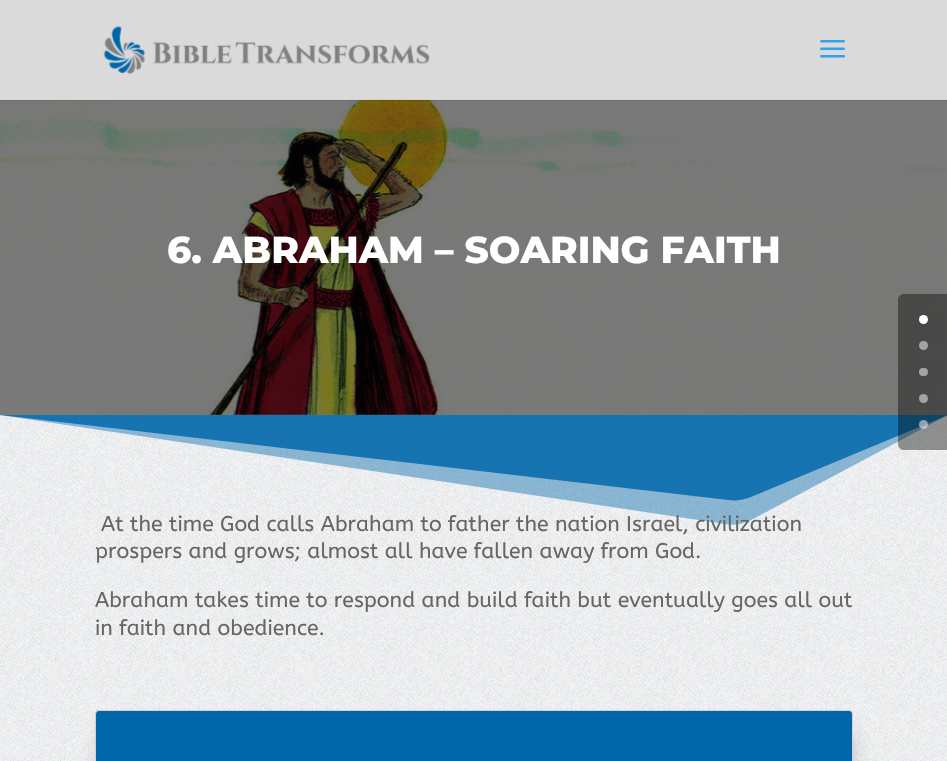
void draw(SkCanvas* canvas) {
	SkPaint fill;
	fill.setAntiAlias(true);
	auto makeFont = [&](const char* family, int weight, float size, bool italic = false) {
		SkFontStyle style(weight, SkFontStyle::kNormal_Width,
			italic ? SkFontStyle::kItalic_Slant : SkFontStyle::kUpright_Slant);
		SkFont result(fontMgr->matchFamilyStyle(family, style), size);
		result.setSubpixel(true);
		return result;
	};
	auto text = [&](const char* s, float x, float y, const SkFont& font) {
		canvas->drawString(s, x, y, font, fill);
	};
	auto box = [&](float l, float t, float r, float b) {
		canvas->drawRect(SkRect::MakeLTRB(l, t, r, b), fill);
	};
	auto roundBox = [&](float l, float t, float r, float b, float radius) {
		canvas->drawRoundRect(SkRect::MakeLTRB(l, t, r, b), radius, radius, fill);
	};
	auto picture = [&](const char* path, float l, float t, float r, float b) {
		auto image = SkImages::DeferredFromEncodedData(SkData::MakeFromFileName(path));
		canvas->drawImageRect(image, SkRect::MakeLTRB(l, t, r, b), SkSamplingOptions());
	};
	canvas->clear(0xFF808080);
	picture("image2.png", 0, 99, 947, 415);
	fill.setColor(0x1A000000);
	canvas->drawPath(SkPathBuilder().moveTo(0, 100).lineTo(0, 101).lineTo(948, 101).lineTo(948, 1).lineTo(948, 100).close().detach(), fill);
	fill.setColor(0xB5FFFFFF);
	box(0, 0, 947, 100);
	picture("image0.png", 103, 26, 430, 74);
	picture("image1.png", 820, 40, 845, 58);
	picture("image3.png", 0, 415, 947, 761);
	fill.setColor(0x6B0066AA);
	canvas->drawPath(SkPathBuilder().moveTo(725, 524).lineTo(0, 415).lineTo(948, 415).lineTo(753, 519).cubicTo(744, 524, 734, 526, 725, 524).close().detach(), fill);
	fill.setColor(0xD60066AA);
	canvas->drawPath(SkPathBuilder().moveTo(728, 500).lineTo(0, 415).lineTo(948, 415).lineTo(751, 497).cubicTo(743, 500, 736, 501, 728, 500).close().detach(), fill);
	fill.setColor(0x4D000000);
	fill.setMaskFilter(SkMaskFilter::MakeBlur(kNormal_SkBlurStyle, 11));
	canvas->drawRect(SkRect::MakeLTRB(105, 734, 848, 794), fill);
	fill.setMaskFilter(nullptr);
	fill.setColor(0xFF0066AA);
	canvas->drawRoundRect(SkRect::MakeLTRB(95.5f, 710.5f, 852.5f, 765.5f), 3.5f, 3.5f, fill);
	fill.setStyle(SkPaint::kStroke_Style);
	fill.setStrokeWidth(1);
	fill.setColor(0xFFD1D1D1);
	canvas->drawRoundRect(SkRect::MakeLTRB(95.5f, 710.5f, 852.5f, 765.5f), 3.5f, 3.5f, fill);
	fill.setStyle(SkPaint::kFill_Style);
	fill.setColor(0x66000000);
	canvas->drawPath(SkPathBuilder().moveTo(904, 294).lineTo(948, 294).lineTo(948, 450).lineTo(904, 450).cubicTo(900.5f, 450, 898, 447.5f, 898, 444).lineTo(898, 300).cubicTo(898, 296.5f, 900.5f, 294, 904, 294).close().detach(), fill);
	fill.setColor(0xFFFFFFFF);
	canvas->drawCircle(923.5f, 319.5f, 4.5f, fill);
	fill.setColor(0xFFA4A4A3);
	canvas->drawCircle(923.5f, 345.5f, 4.5f, fill);
	roundBox(919, 368, 928, 376, 4);
	canvas->drawCircle(923.5f, 398.5f, 4.5f, fill);
	fill.setColor(0x80FFFFFF);
	canvas->drawCircle(923.5f, 424.5f, 4.5f, fill);
	auto font1 = makeFont("Montserrat", 100, 37.5f);
	fill.setColor(0xFFFFFFFF);
	text("6. ABRAHAM – SOARING FAITH", 167, 263, font1);
	auto font2 = makeFont("ABeeZee", 400, 21.25f);
	fill.setColor(0xFF666666);
	text("At the time God calls Abraham to father the nation Israel, civilization", 101, 531, font2);
	text("prospers and grows; almost all have fallen away from God.", 95, 558, font2);
	text("Abraham takes time to respond and build faith but eventually goes all out", 95, 607, font2);
	text("in faith and obedience.", 95, 635, font2);
}
